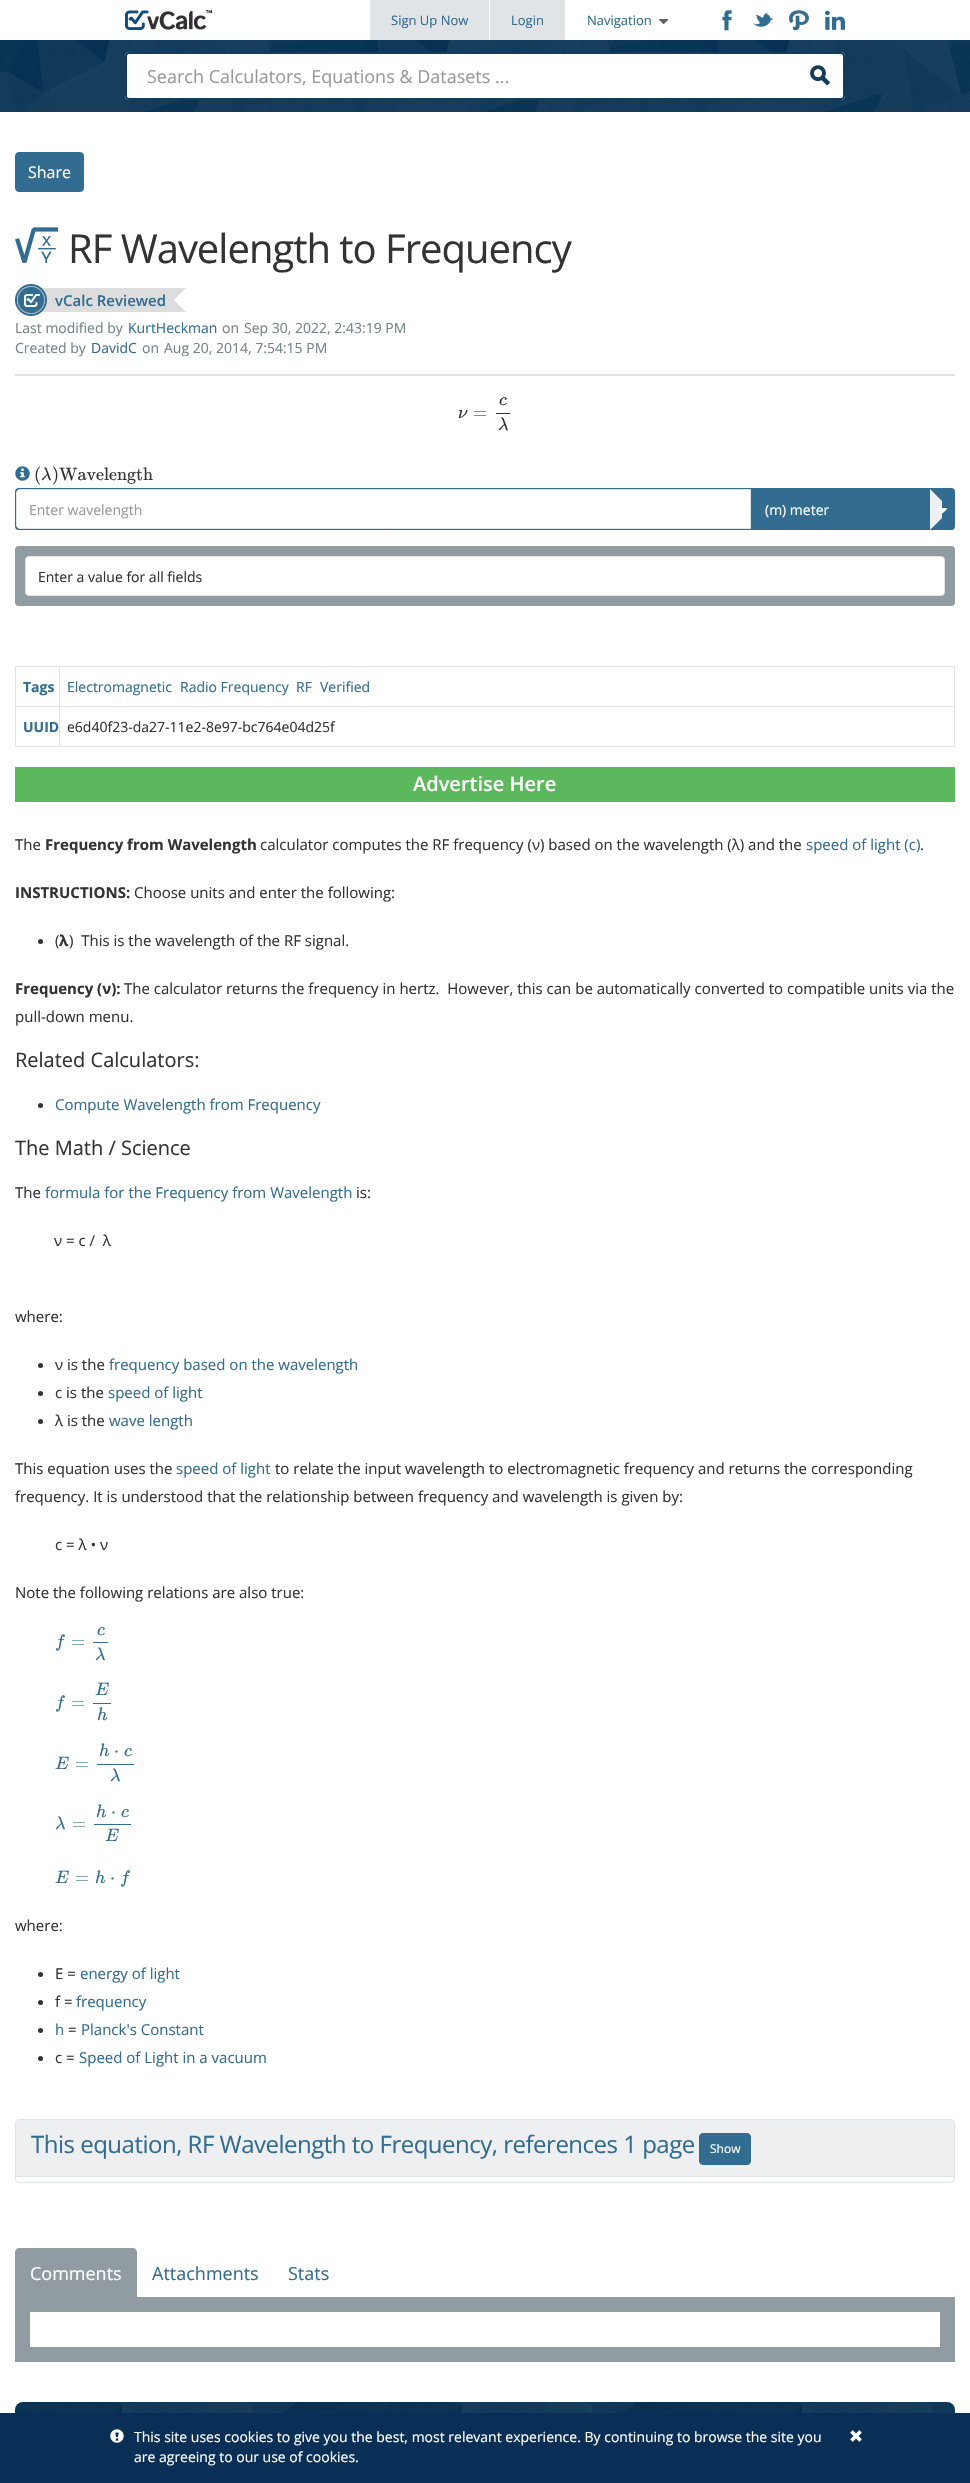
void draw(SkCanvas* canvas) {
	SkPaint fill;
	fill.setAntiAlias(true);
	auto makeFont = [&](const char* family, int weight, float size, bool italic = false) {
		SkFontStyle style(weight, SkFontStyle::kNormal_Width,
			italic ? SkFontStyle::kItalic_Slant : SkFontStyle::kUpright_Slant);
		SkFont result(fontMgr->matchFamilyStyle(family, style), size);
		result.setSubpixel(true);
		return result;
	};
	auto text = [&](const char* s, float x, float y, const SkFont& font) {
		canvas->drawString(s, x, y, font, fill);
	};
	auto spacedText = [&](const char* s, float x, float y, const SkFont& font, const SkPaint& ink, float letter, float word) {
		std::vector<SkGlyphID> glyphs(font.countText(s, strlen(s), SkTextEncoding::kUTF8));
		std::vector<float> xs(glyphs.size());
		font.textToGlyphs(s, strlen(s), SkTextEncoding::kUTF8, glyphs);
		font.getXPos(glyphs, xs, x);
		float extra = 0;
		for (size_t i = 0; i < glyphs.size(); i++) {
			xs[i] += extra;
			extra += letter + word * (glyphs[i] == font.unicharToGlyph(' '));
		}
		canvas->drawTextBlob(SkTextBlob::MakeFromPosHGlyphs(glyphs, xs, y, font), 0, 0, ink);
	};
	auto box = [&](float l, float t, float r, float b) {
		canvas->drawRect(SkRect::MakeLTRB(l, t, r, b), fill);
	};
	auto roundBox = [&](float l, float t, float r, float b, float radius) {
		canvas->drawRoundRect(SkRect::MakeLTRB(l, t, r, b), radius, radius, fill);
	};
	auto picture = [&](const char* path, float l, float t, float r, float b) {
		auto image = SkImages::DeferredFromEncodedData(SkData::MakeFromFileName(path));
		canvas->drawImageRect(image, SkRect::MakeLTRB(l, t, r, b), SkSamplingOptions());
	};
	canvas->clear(0xFFFFFFFF);
	picture("image0.png", 125, 10, 212, 30);
	fill.setColor(0xFFE0E4E7);
	box(370, 0, 489, 40);
	box(490, 0, 565, 40);
	picture("image1.png", 659, 19, 669, 25);
	picture("image2.png", 722, 10, 732, 31);
	picture("image3.png", 753, 13, 773, 27);
	picture("image4.png", 789, 10, 809, 31);
	picture("image5.png", 825, 10, 845, 30);
	picture("image6.png", 0, 40, 970, 112);
	fill.setColor(0xFFFFFFFF);
	canvas->drawPath(SkPathBuilder().moveTo(797, 52).lineTo(841, 52).cubicTo(843, 52, 845, 54, 845, 56).lineTo(845, 96).cubicTo(845, 98, 843, 100, 841, 100).lineTo(797, 100).close().detach(), fill);
	fill.setColor(0xFF143C5B);
	canvas->drawPath(SkPathBuilder(SkPathFillType::kEvenOdd).moveTo(797, 52).lineTo(841, 52).cubicTo(843, 52, 845, 54, 845, 56).lineTo(845, 96).cubicTo(845, 98, 843, 100, 841, 100).lineTo(797, 100).close().moveTo(797, 54).lineTo(841, 54).cubicTo(842, 54, 843, 55, 843, 56).lineTo(843, 96).cubicTo(843, 97, 842, 98, 841, 98).lineTo(797, 98).close().detach(), fill);
	fill.setColor(0xFFFFFFFF);
	canvas->drawPath(SkPathBuilder().moveTo(129, 52).lineTo(798, 52).lineTo(798, 100).lineTo(129, 100).cubicTo(127, 100, 125, 98, 125, 96).lineTo(125, 56).cubicTo(125, 54, 127, 52, 129, 52).close().detach(), fill);
	fill.setColor(0xFF143C5B);
	canvas->drawPath(SkPathBuilder(SkPathFillType::kEvenOdd).moveTo(129, 52).lineTo(798, 52).lineTo(798, 100).lineTo(129, 100).cubicTo(127, 100, 125, 98, 125, 96).lineTo(125, 56).cubicTo(125, 54, 127, 52, 129, 52).close().moveTo(129, 54).lineTo(798, 54).lineTo(798, 98).lineTo(129, 98).cubicTo(128, 98, 127, 97, 127, 96).lineTo(127, 56).cubicTo(127, 55, 128, 54, 129, 54).close().detach(), fill);
	picture("image7.png", 810, 65, 830, 86);
	fill.setColor(0xFF326C90);
	canvas->drawRoundRect(SkRect::MakeLTRB(15.5f, 152.5f, 83.5f, 191.5f), 3.5f, 3.5f, fill);
	fill.setStyle(SkPaint::kStroke_Style);
	fill.setStrokeWidth(1);
	canvas->drawRoundRect(SkRect::MakeLTRB(15.5f, 152.5f, 83.5f, 191.5f), 3.5f, 3.5f, fill);
	picture("image8.png", 15, 227, 58, 264);
	picture("image9.png", 15, 284, 170, 316);
	picture("image10.png", 170, 288, 186, 312);
	fill.setStyle(SkPaint::kFill_Style);
	fill.setColor(0xFFE0E4E7);
	box(15, 374, 955, 376);
	fill.setColor(0xFF333333);
	box(496, 413, 510, 414);
	picture("image11.png", 15, 466, 30, 481);
	fill.setColor(0xFF326C90);
	roundBox(15, 488, 955, 530, 4);
	fill.setColor(0xFFFFFFFF);
	canvas->drawPath(SkPathBuilder().moveTo(20, 489.5f).lineTo(750.5f, 489.5f).lineTo(750.5f, 528.5f).lineTo(20, 528.5f).cubicTo(18, 528.5f, 16.5f, 527, 16.5f, 525).lineTo(16.5f, 493).cubicTo(16.5f, 491, 18, 489.5f, 20, 489.5f).close().detach(), fill);
	fill.setStyle(SkPaint::kStroke_Style);
	fill.setColor(0xFFE0E4E7);
	canvas->drawPath(SkPathBuilder().moveTo(20, 489.5f).lineTo(750.5f, 489.5f).lineTo(750.5f, 528.5f).lineTo(20, 528.5f).cubicTo(18, 528.5f, 16.5f, 527, 16.5f, 525).lineTo(16.5f, 493).cubicTo(16.5f, 491, 18, 489.5f, 20, 489.5f).close().detach(), fill);
	fill.setStyle(SkPaint::kFill_Style);
	fill.setColor(0xFF326C90);
	canvas->drawPath(SkPathBuilder().moveTo(930, 489).lineTo(951, 489).cubicTo(952.5f, 489, 954, 490.5f, 954, 492).lineTo(954, 527).cubicTo(954, 528.5f, 952.5f, 530, 951, 530).lineTo(930, 530).close().detach(), fill);
	canvas->drawPath(SkPathBuilder().moveTo(953, 490).lineTo(942, 501).lineTo(942, 518).lineTo(953, 529).cubicTo(954, 528.5f, 954, 528, 954, 527).lineTo(954, 492).cubicTo(954, 491, 954, 490, 953, 490).close().detach(), fill);
	canvas->save();
	canvas->clipRect(SkRect::MakeLTRB(15, 488, 955, 530));
	canvas->drawPath(SkPathBuilder().moveTo(953, 529).lineTo(942, 518).lineTo(930, 530).lineTo(944, 530).cubicTo(945.5f, 530, 951.5f, 531, 953, 529).close().detach(), fill);
	canvas->restore();
	fill.setColor(0xFFEEEFF0);
	canvas->drawPath(SkPathBuilder().moveTo(930, 489).lineTo(942, 501).lineTo(942, 518).lineTo(930, 530).close().detach(), fill);
	picture("image12.png", 938, 508, 948, 514);
	fill.setColor(0xFF919CA2);
	roundBox(15, 546, 955, 606, 4);
	fill.setColor(0xFFFFFFFF);
	canvas->drawRoundRect(SkRect::MakeLTRB(25.5f, 556.5f, 944.5f, 595.5f), 3.5f, 3.5f, fill);
	fill.setStyle(SkPaint::kStroke_Style);
	fill.setColor(0xFFE0E4E7);
	canvas->drawRoundRect(SkRect::MakeLTRB(25.5f, 556.5f, 944.5f, 595.5f), 3.5f, 3.5f, fill);
	fill.setStyle(SkPaint::kFill_Style);
	box(60, 666, 955, 667);
	box(954, 666, 955, 747);
	box(15, 746, 955, 747);
	box(15, 666, 16, 747);
	box(15, 666, 60, 667);
	box(15, 706, 955, 707);
	box(59, 706, 60, 747);
	box(59, 666, 60, 707);
	fill.setColor(0xFF5CB85C);
	box(15, 767, 955, 802);
	fill.setColor(0xFF333333);
	canvas->drawCircle(40.5f, 941.5f, 2.5f, fill);
	canvas->drawCircle(40.5f, 1105.5f, 2.5f, fill);
	canvas->drawCircle(40.5f, 1365.5f, 2.5f, fill);
	canvas->drawCircle(40.5f, 1393.5f, 2.5f, fill);
	canvas->drawCircle(40.5f, 1421.5f, 2.5f, fill);
	fill.setColor(0xFF326C90);
	box(93, 1642, 108, 1643);
	box(93, 1703, 111, 1704);
	box(97, 1764, 134, 1765);
	box(94, 1824, 131, 1825);
	fill.setColor(0xFF333333);
	canvas->drawCircle(40.5f, 1974.5f, 2.5f, fill);
	canvas->drawCircle(40.5f, 2002.5f, 2.5f, fill);
	canvas->drawCircle(40.5f, 2030.5f, 2.5f, fill);
	canvas->drawCircle(40.5f, 2058.5f, 2.5f, fill);
	fill.setStyle(SkPaint::kStroke_Style);
	fill.setColor(0xFFE0E4E7);
	canvas->drawRoundRect(SkRect::MakeLTRB(15.5f, 2119.5f, 954.5f, 2182.5f), 3.5f, 3.5f, fill);
	fill.setStyle(SkPaint::kFill_Style);
	fill.setColor(0xFFEEEFF0);
	canvas->drawPath(SkPathBuilder().moveTo(19, 2120).lineTo(951, 2120).cubicTo(952.5f, 2120, 954, 2121.5f, 954, 2123).lineTo(954, 2177).lineTo(16, 2177).lineTo(16, 2123).cubicTo(16, 2121.5f, 17.5f, 2120, 19, 2120).close().detach(), fill);
	fill.setColor(0xFFE0E4E7);
	box(16, 2176, 954, 2177);
	fill.setColor(0xFF326C90);
	canvas->drawRoundRect(SkRect::MakeLTRB(699.5f, 2133.5f, 750.5f, 2164.5f), 3.5f, 3.5f, fill);
	fill.setStyle(SkPaint::kStroke_Style);
	canvas->drawRoundRect(SkRect::MakeLTRB(699.5f, 2133.5f, 750.5f, 2164.5f), 3.5f, 3.5f, fill);
	fill.setStyle(SkPaint::kFill_Style);
	fill.setColor(0xFF919CA2);
	canvas->drawPath(SkPathBuilder().moveTo(19, 2248).lineTo(133, 2248).cubicTo(135, 2248, 137, 2250, 137, 2252).lineTo(137, 2297).lineTo(15, 2297).lineTo(15, 2252).cubicTo(15, 2250, 17, 2248, 19, 2248).close().detach(), fill);
	fill.setStyle(SkPaint::kStroke_Style);
	fill.setStrokeWidth(15);
	canvas->drawRect(SkRect::MakeLTRB(22.5f, 2304.5f, 947.5f, 2354.5f), fill);
	picture("image13.png", 15, 2402, 955, 2413);
	fill.setStyle(SkPaint::kFill_Style);
	fill.setColor(0xFF092F57);
	box(0, 2413, 970, 2483);
	picture("image14.png", 110, 2429, 124, 2443);
	picture("image15.png", 850, 2430, 862, 2442);
	auto font1 = makeFont("Open Sans", 400, 13);
	fill.setColor(0xFF326C90);
	text("Sign Up Now", 391, 25, font1);
	text("Login", 511, 25, font1);
	text("Navigation", 587, 25, font1);
	auto font2 = makeFont("Open Sans", 400, 18);
	fill.setColor(0xFF999999);
	text("Search Calculators, Equations & Datasets ...", 147, 83, font2);
	auto font3 = makeFont("Open Sans", 400, 16);
	fill.setColor(0xFFFFFFFF);
	text("Share", 28, 178, font3);
	auto font4 = makeFont("Open Sans", 400, 40);
	fill.setColor(0xFF333333);
	spacedText("RF Wavelength to Frequency", 68, 263, font4, fill, -1, 0);
	auto font5 = makeFont("Open Sans", 600, 15);
	fill.setColor(0xFF326C90);
	text("vCalc Reviewed", 55, 306, font5);
	auto font6 = makeFont("Open Sans", 400, 14);
	fill.setColor(0xFF75838B);
	text("Last modified by", 15, 333, font6);
	fill.setColor(0xFF326C90);
	text("KurtHeckman", 128, 333, font6);
	fill.setColor(0xFF75838B);
	text("on", 222, 333, font6);
	text("Sep 30, 2022, 2:43:19 PM", 244, 333, font6);
	text("Created by", 15, 353, font6);
	fill.setColor(0xFF326C90);
	text("DavidC", 91, 353, font6);
	fill.setColor(0xFF75838B);
	text("on", 142, 353, font6);
	canvas->save();
	canvas->clipRect(SkRect::MakeLTRB(15, 340, 955, 356));
	text("Aug 20, 2014, 7:54:15 PM", 164, 353, font6);
	canvas->restore();
	auto font7 = makeFont("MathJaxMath", 400, 18, true);
	fill.setColor(0xFF333333);
	text("ν", 458, 418, font7);
	auto font8 = makeFont("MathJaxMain", 400, 18);
	text("=", 473, 418, font8);
	text("c", 499, 405, font7);
	text("λ", 498, 430, font7);
	text("(", 34, 480, font8);
	text("λ", 41, 480, font7);
	text(")Wavelength", 52, 480, font8);
	fill.setColor(0xFF999999);
	text("Enter wavelength", 29, 515, font6);
	fill.setColor(0xFFFFFFFF);
	text("(m) meter", 765, 515, font6);
	fill.setColor(0xFF333333);
	text("Enter a value for all fields", 38, 582, font6);
	auto font9 = makeFont("Open Sans", 700, 14);
	fill.setColor(0xFF326C90);
	text("Tags", 23, 692, font9);
	text("Electromagnetic", 67, 692, font6);
	text("Radio Frequency", 180, 692, font6);
	text("RF", 296, 692, font6);
	text("Verified", 320, 692, font6);
	text("UUID", 23, 732, font9);
	fill.setColor(0xFF333333);
	text("e6d40f23-da27-11e2-8e97-bc764e04d25f", 67, 732, font6);
	auto font10 = makeFont("Open Sans", 600, 20);
	fill.setColor(0xFFFFFFFF);
	text("Advertise Here", 413, 791, font10);
	auto font11 = makeFont("Open Sans", 400, 15);
	fill.setColor(0xFF333333);
	text("The", 15, 850, font11);
	auto font12 = makeFont("Open Sans", 700, 15);
	text("Frequency from Wavelength", 45, 850, font12);
	text("calculator computes the RF frequency (ν) based on the wavelength (λ) and the", 260, 850, font11);
	fill.setColor(0xFF326C90);
	text("speed of light (c)", 806, 850, font11);
	fill.setColor(0xFF333333);
	text(".", 920, 850, font11);
	text("INSTRUCTIONS:", 15, 898, font12);
	text("Choose units and enter the following:", 134, 898, font11);
	text("(", 55, 946, font11);
	text("λ", 59, 946, font12);
	text(")  This is the wavelength of the RF signal.", 69, 946, font11);
	text("Frequency (ν):", 15, 994, font12);
	text("The calculator returns the frequency in hertz.  However, this can be automatically converted to compatible units via the", 124, 994, font11);
	text("pull-down menu.", 15, 1022, font11);
	auto font13 = makeFont("Open Sans", 400, 20);
	text("Related Calculators:", 15, 1067, font13);
	fill.setColor(0xFF326C90);
	text("Compute Wavelength from Frequency", 55, 1110, font11);
	fill.setColor(0xFF333333);
	text("The Math / Science", 15, 1155, font13);
	text("The", 15, 1198, font11);
	fill.setColor(0xFF326C90);
	text("formula for the Frequency from Wavelength", 45, 1198, font11);
	fill.setColor(0xFF333333);
	text("is:", 356, 1198, font11);
	text("ν = c /  λ", 54, 1246, font11);
	text("where:", 15, 1322, font11);
	text("ν is the", 55, 1370, font11);
	fill.setColor(0xFF326C90);
	text("frequency based on the wavelength", 109, 1370, font11);
	fill.setColor(0xFF333333);
	text("c is the", 55, 1398, font11);
	fill.setColor(0xFF326C90);
	text("speed of light", 108, 1398, font11);
	fill.setColor(0xFF333333);
	text("λ is the", 55, 1426, font11);
	fill.setColor(0xFF326C90);
	text("wave length", 109, 1426, font11);
	fill.setColor(0xFF333333);
	text("This equation uses the", 15, 1474, font11);
	fill.setColor(0xFF326C90);
	text("speed of light", 176, 1474, font11);
	fill.setColor(0xFF333333);
	text("to relate the input wavelength to electromagnetic frequency and returns the corresponding", 275, 1474, font11);
	text("frequency. It is understood that the relationship between frequency and wavelength is given by:", 15, 1502, font11);
	text("c = λ • ν", 55, 1550, font11);
	text("Note the following relations are also true:", 15, 1598, font11);
	fill.setColor(0xFF326C90);
	text("f", 55, 1647, font7);
	text("=", 71, 1647, font8);
	text("c", 97, 1635, font7);
	text("λ", 95, 1660, font7);
	text("f", 55, 1708, font7);
	text("=", 71, 1708, font8);
	text("E", 95, 1695, font7);
	text("h", 97, 1720, font7);
	text("E", 55, 1769, font7);
	text("=", 75, 1769, font8);
	text("h", 99, 1756, font7);
	text("⋅", 114, 1756, font8);
	text("c", 124, 1756, font7);
	text("λ", 110, 1781, font7);
	text("λ", 55, 1829, font7);
	text("=", 72, 1829, font8);
	text("h", 96, 1817, font7);
	text("⋅", 111, 1817, font8);
	text("c", 121, 1817, font7);
	text("E", 105, 1841, font7);
	text("E", 55, 1883, font7);
	text("=", 75, 1883, font8);
	text("h", 95, 1883, font7);
	text("⋅", 110, 1883, font8);
	text("f", 120, 1883, font7);
	fill.setColor(0xFF333333);
	text("where:", 15, 1931, font11);
	text("E =", 55, 1979, font11);
	fill.setColor(0xFF326C90);
	text("energy of light", 80, 1979, font11);
	fill.setColor(0xFF333333);
	text("f =", 55, 2007, font11);
	fill.setColor(0xFF326C90);
	text("frequency", 76, 2007, font11);
	text("h", 55, 2035, font11);
	fill.setColor(0xFF333333);
	text("=", 68, 2035, font11);
	fill.setColor(0xFF326C90);
	text("Planck's Constant", 81, 2035, font11);
	fill.setColor(0xFF333333);
	text("c =", 55, 2063, font11);
	fill.setColor(0xFF326C90);
	text("Speed of Light in a vacuum", 79, 2063, font11);
	auto font14 = makeFont("Open Sans", 400, 24);
	spacedText("This equation, RF Wavelength to Frequency, references 1 page", 31, 2153, font14, fill, -0.5f, 0);
	auto font15 = makeFont("Open Sans", 400, 12);
	fill.setColor(0xFFFFFFFF);
	text("Show", 710, 2153, font15);
	text("Comments", 30, 2280, font2);
	fill.setColor(0xFF326C90);
	text("Attachments", 152, 2280, font2);
	text("Stats", 288, 2280, font2);
	fill.setColor(0xFFFFFFFF);
	text("This site uses cookies to give you the best, most relevant experience. By continuing to browse the site you", 134, 2442, font6);
	text("are agreeing to our use of cookies.", 134, 2462, font6);
}
